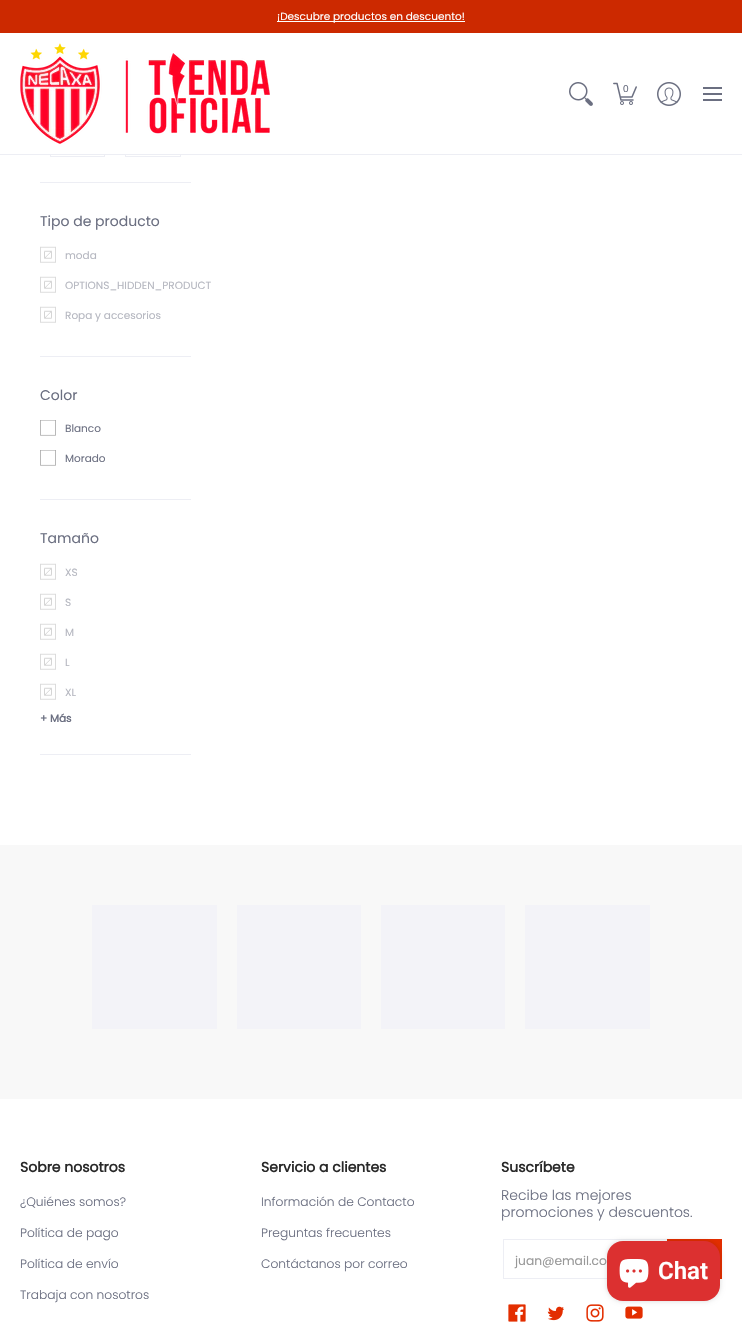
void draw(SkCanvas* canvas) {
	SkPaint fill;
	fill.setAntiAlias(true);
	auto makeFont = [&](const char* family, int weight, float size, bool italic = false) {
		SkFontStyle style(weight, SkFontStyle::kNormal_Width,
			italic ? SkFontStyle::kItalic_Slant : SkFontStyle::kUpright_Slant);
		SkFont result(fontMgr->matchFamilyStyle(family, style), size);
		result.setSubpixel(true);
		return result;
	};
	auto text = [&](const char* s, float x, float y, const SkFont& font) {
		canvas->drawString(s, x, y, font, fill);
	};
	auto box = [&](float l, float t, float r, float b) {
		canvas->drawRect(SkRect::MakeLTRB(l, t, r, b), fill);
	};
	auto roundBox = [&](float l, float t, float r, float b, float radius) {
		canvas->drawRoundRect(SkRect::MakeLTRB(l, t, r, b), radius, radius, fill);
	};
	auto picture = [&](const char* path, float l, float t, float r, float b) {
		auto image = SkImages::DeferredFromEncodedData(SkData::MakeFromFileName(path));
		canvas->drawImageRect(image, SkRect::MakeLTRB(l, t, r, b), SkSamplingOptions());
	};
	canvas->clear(0xFFFFFFFF);
	fill.setStyle(SkPaint::kStroke_Style);
	fill.setStrokeWidth(1);
	fill.setColor(0xFFEDEEF4);
	canvas->drawRect(SkRect::MakeLTRB(50.5f, 117.5f, 104.5f, 156.5f), fill);
	canvas->drawRect(SkRect::MakeLTRB(125.5f, 117.5f, 180.5f, 156.5f), fill);
	fill.setStyle(SkPaint::kFill_Style);
	fill.setColor(0xFFFFFFFF);
	box(50, 117, 181, 154);
	fill.setColor(0xFFCC2900);
	box(0, 0, 742, 33);
	fill.setColor(0xFFFFFFFF);
	box(277, 21, 465, 22);
	fill.setColor(0xFFEDEEF4);
	box(0, 154, 742, 155);
	picture("image0.png", 20, 43, 270, 144);
	picture("image1.png", 569, 82, 593, 106);
	picture("image2.png", 613, 82, 637, 105);
	picture("image3.png", 657, 82, 681, 106);
	fill.setColor(0xFF6B6F81);
	box(703, 87, 722, 89);
	box(703, 99, 722, 101);
	box(703, 93, 722, 95);
	fill.setColor(0xFFEDEEF4);
	box(40, 182, 191, 183);
	box(40, 356, 191, 357);
	picture("image4.png", 40, 246, 56, 263);
	picture("image5.png", 44, 250, 52, 259);
	picture("image4.png", 40, 276, 56, 293);
	picture("image5.png", 44, 280, 52, 289);
	picture("image4.png", 40, 306, 56, 323);
	picture("image5.png", 44, 310, 52, 319);
	box(40, 499, 191, 500);
	picture("image6.png", 40, 420, 56, 436);
	picture("image6.png", 40, 450, 56, 466);
	box(40, 754, 191, 755);
	picture("image4.png", 40, 563, 56, 580);
	picture("image5.png", 44, 567, 52, 576);
	picture("image4.png", 40, 593, 56, 610);
	picture("image5.png", 44, 597, 52, 606);
	picture("image4.png", 40, 623, 56, 640);
	picture("image5.png", 44, 627, 52, 636);
	picture("image4.png", 40, 653, 56, 670);
	picture("image5.png", 44, 657, 52, 666);
	picture("image4.png", 40, 683, 56, 700);
	picture("image5.png", 44, 687, 52, 696);
	fill.setColor(0xFFF8F8F8);
	box(0, 845, 742, 1099);
	fill.setColor(0xFFF3F3F8);
	box(92, 905, 217, 1029);
	box(237, 905, 361, 1029);
	box(381, 905, 505, 1029);
	box(525, 905, 650, 1029);
	fill.setStyle(SkPaint::kStroke_Style);
	fill.setColor(0xFFEDEEF4);
	canvas->drawRect(SkRect::MakeLTRB(503.5f, 1239.5f, 668.5f, 1278.5f), fill);
	fill.setStyle(SkPaint::kFill_Style);
	fill.setColor(0xFFE32E00);
	box(667, 1239, 722, 1279);
	picture("image7.png", 508, 1304, 526, 1322);
	picture("image8.png", 547, 1306, 564, 1321);
	picture("image9.png", 586, 1304, 604, 1322);
	picture("image10.png", 625, 1306, 643, 1319);
	fill.setColor(0x26000000);
	fill.setMaskFilter(SkMaskFilter::MakeBlur(kNormal_SkBlurStyle, 2.5f));
	canvas->drawRoundRect(SkRect::MakeLTRB(607, 1241, 720, 1301), 16, 16, fill);
	fill.setMaskFilter(nullptr);
	fill.setColor(0xFFDC3030);
	roundBox(607, 1241, 720, 1301, 16);
	picture("image11.png", 619, 1259, 649, 1288);
	auto font1 = makeFont("Poppins", 400, 10.5f);
	fill.setColor(0xFFFFFFFF);
	text("¡Descubre productos en descuento!", 277, 20, font1);
	auto font2 = makeFont("Liberation Sans", 400, 10);
	fill.setColor(0xFF6B6F81);
	text("0", 623, 92, font2);
	auto font3 = makeFont("Poppins", 400, 14);
	text("Tipo de producto", 40, 226, font3);
	fill.setColor(0xFFB5B7C0);
	text("moda", 65, 259, font1);
	text("OPTIONS_HIDDEN_PRODUCT", 65, 289, font1);
	text("Ropa y accesorios", 65, 319, font1);
	fill.setColor(0xFF6B6F81);
	text("Color", 40, 400, font3);
	text("Blanco", 65, 432, font1);
	text("Morado", 65, 462, font1);
	text("Tamaño", 40, 543, font3);
	fill.setColor(0xFFB5B7C0);
	text("XS", 65, 576, font1);
	text("S", 65, 606, font1);
	text("M", 65, 636, font1);
	text("L", 65, 666, font1);
	text("XL", 65, 696, font1);
	auto font4 = makeFont("Poppins", 700, 10.5f);
	fill.setColor(0xFF6B6F81);
	text("+ Más", 40, 722, font4);
	auto font5 = makeFont("Poppins", 700, 14);
	fill.setColor(0xFF292929);
	text("Sobre nosotros", 20, 1172, font5);
	auto font6 = makeFont("Poppins", 300, 12.25f);
	fill.setColor(0xFF6B6F81);
	text("¿Quiénes somos?", 20, 1206, font6);
	text("Política de pago", 20, 1237, font6);
	text("Política de envío", 20, 1268, font6);
	text("Trabaja con nosotros", 20, 1299, font6);
	fill.setColor(0xFF292929);
	text("Servicio a clientes", 261, 1172, font5);
	fill.setColor(0xFF6B6F81);
	text("Información de Contacto", 261, 1206, font6);
	text("Preguntas frecuentes", 261, 1237, font6);
	text("Contáctanos por correo", 261, 1268, font6);
	fill.setColor(0xFF292929);
	text("Suscríbete", 501, 1172, font5);
	auto font7 = makeFont("Poppins", 300, 14);
	fill.setColor(0xFF6B6F81);
	text("Recibe las mejores", 501, 1200, font7);
	text("promociones y descuentos.", 501, 1217, font7);
	auto font8 = makeFont("Poppins", 400, 12.25f);
	fill.setColor(0xFF989898);
	text("juan@email.co", 515, 1265, font8);
	auto font9 = makeFont("Roboto", 600, 24);
	fill.setColor(0xFFFFFFFF);
	text("Chat", 658, 1279, font9);
}
